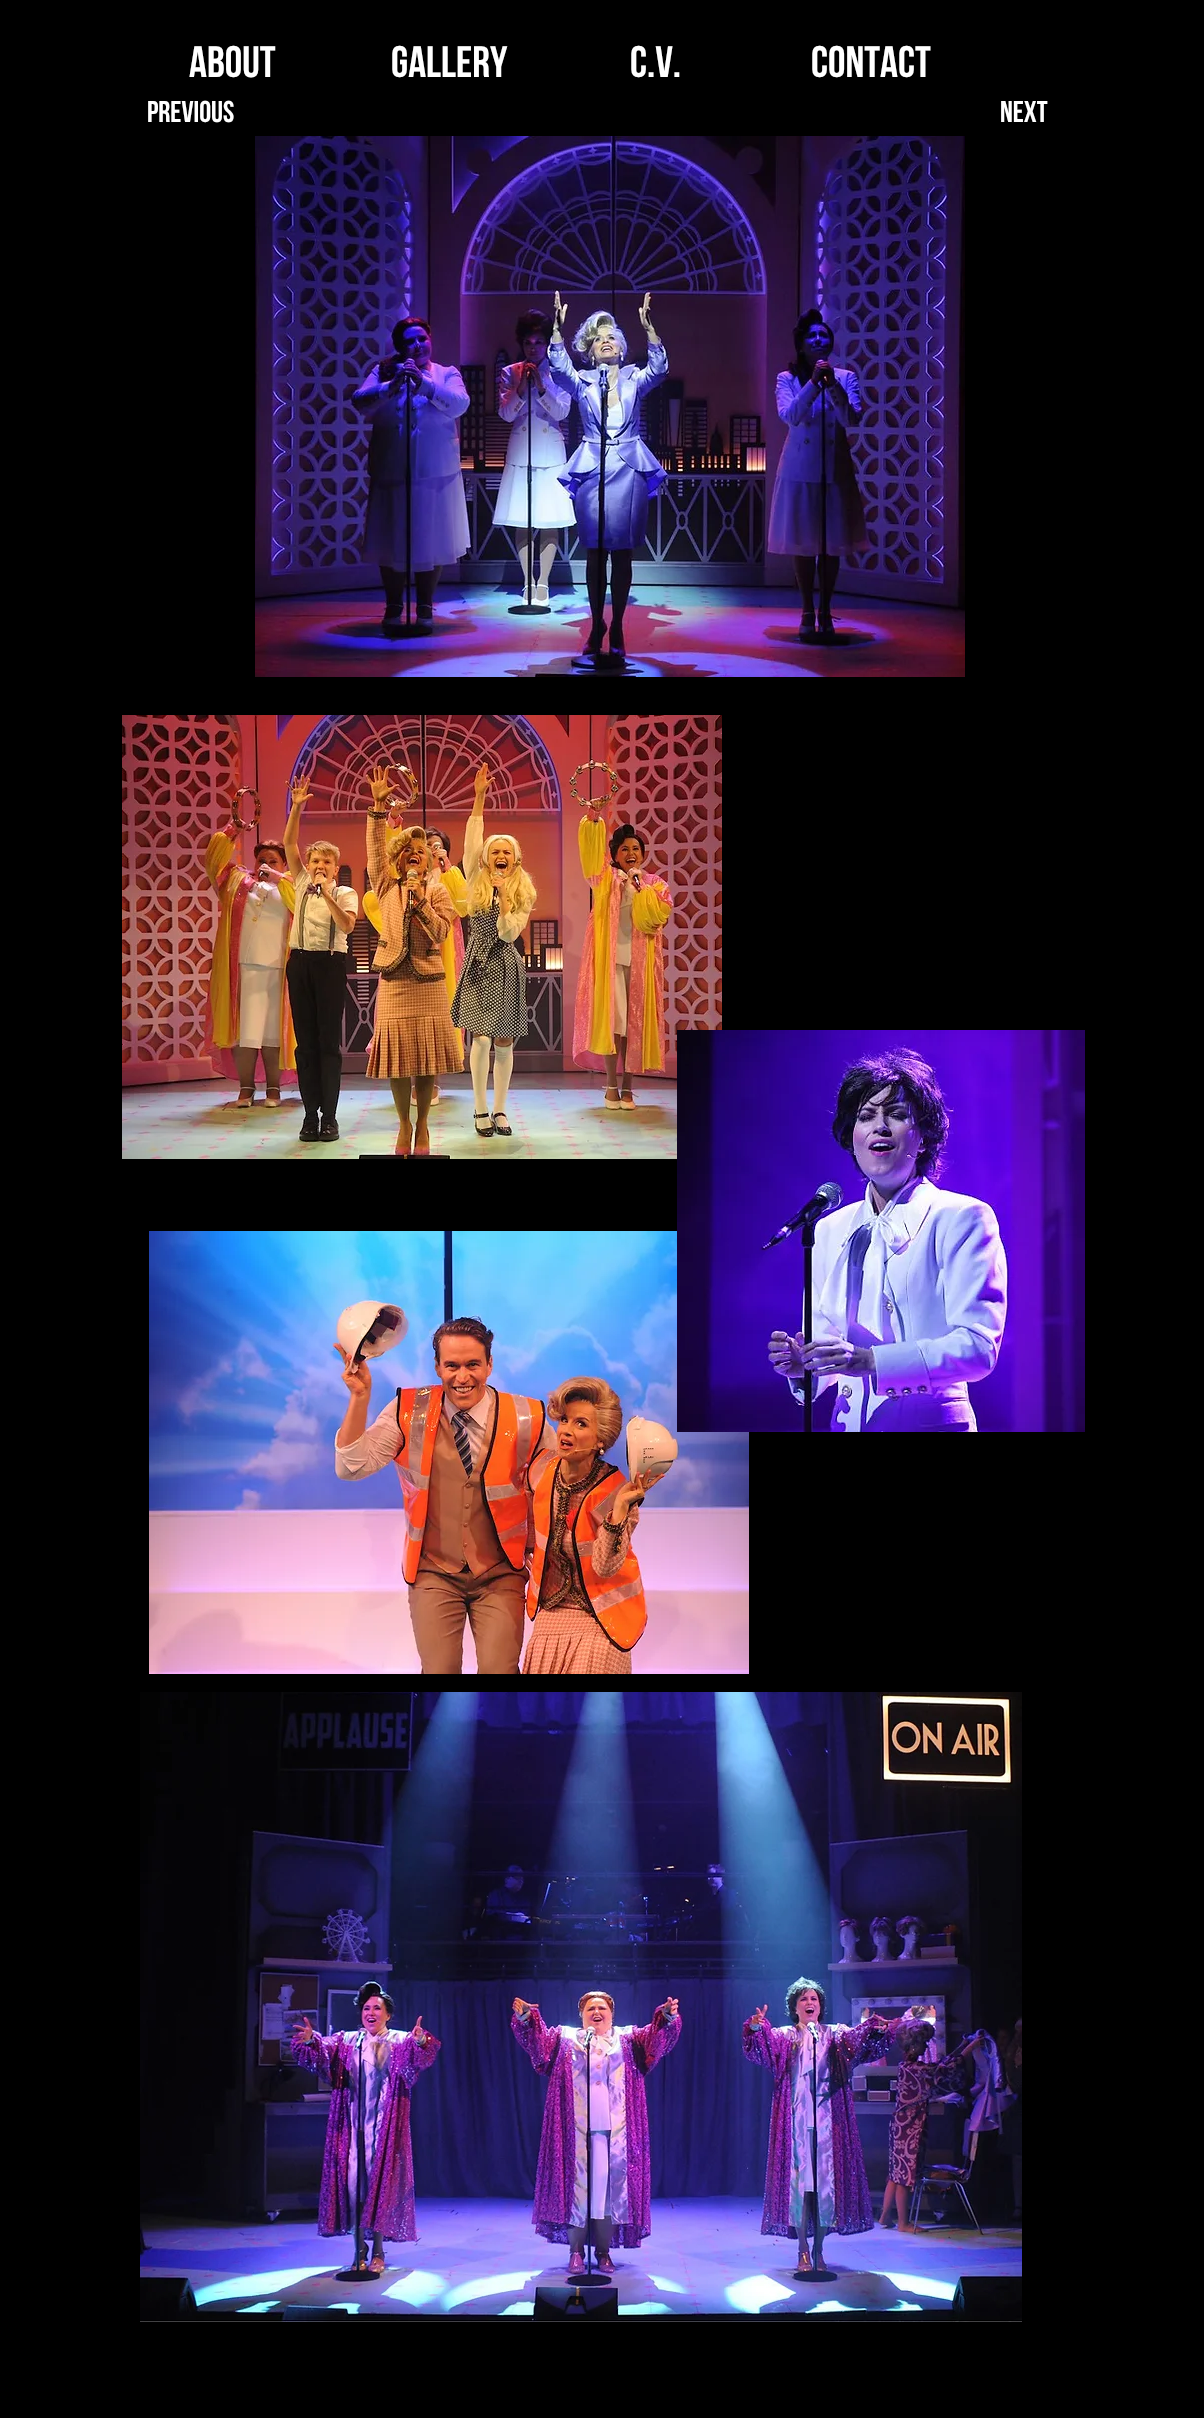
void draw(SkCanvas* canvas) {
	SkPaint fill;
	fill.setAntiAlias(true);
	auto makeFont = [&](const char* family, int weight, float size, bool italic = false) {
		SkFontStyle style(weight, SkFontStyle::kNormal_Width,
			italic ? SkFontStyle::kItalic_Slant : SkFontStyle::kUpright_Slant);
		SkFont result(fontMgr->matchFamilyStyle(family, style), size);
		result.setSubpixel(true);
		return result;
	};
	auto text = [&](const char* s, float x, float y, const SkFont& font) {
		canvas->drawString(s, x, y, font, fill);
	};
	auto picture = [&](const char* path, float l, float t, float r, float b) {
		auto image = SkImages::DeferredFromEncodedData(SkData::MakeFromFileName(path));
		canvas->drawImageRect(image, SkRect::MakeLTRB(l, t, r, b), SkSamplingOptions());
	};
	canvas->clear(0xFF000000);
	picture("image0.png", 255, 136, 965, 677);
	picture("image1.png", 122, 715, 722, 1159);
	picture("image2.png", 149, 1231, 749, 1674);
	picture("image3.png", 677, 1030, 1085, 1432);
	picture("image4.png", 140, 1692, 1022, 2322);
	auto font1 = makeFont("Bebas Neue", 400, 44);
	fill.setColor(0xFFFFFFFF);
	text("ABOUT", 189, 77, font1);
	text("GALLERY", 391, 77, font1);
	text("C.V.", 630, 77, font1);
	text("CONTACT", 811, 77, font1);
	auto font2 = makeFont("Bebas Neue", 400, 30);
	text("PREVIOUS", 147, 122, font2);
	text("NEXT", 1000, 122, font2);
}
